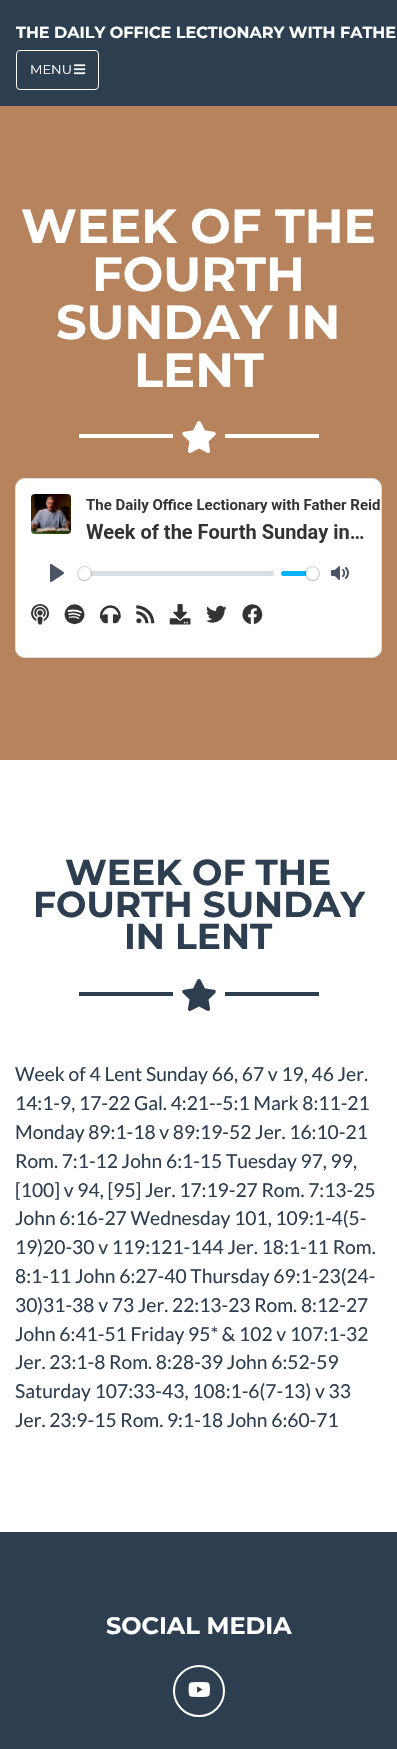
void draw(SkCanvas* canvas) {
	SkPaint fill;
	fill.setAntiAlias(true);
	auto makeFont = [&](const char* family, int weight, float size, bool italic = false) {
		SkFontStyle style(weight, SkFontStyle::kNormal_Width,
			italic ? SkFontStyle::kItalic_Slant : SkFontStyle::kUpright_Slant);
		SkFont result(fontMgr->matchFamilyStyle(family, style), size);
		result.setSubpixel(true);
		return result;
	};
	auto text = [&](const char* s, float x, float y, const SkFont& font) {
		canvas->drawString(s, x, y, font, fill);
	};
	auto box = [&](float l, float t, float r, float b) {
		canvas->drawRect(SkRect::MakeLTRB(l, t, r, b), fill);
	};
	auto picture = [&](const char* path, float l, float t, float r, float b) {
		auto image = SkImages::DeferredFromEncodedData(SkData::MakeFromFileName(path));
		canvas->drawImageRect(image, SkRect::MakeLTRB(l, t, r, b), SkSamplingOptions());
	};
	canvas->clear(0xFFFFFFFF);
	fill.setColor(0xFF2C3E50);
	box(0, 0, 397, 106);
	fill.setStyle(SkPaint::kStroke_Style);
	fill.setStrokeWidth(1);
	fill.setColor(0xFFFFFFFF);
	canvas->drawRoundRect(SkRect::MakeLTRB(16.5f, 50.5f, 98.5f, 89.5f), 3.5f, 3.5f, fill);
	picture("image0.png", 74, 64, 86, 75);
	fill.setStyle(SkPaint::kFill_Style);
	fill.setColor(0xFFB6835C);
	box(0, 106, 397, 760);
	fill.setColor(0xFFFFFFFF);
	box(79, 434, 319, 438);
	fill.setColor(0xFFB6835C);
	box(173, 434, 225, 438);
	picture("image1.png", 182, 421, 216, 453);
	picture("image2.png", 15, 478, 382, 658);
	fill.setColor(0xFF2C3E50);
	box(79, 992, 319, 996);
	fill.setColor(0xFFFFFFFF);
	box(173, 992, 225, 996);
	picture("image3.png", 182, 979, 216, 1011);
	fill.setColor(0xFF2C3E50);
	box(0, 1532, 397, 1749);
	fill.setStyle(SkPaint::kStroke_Style);
	fill.setStrokeWidth(2);
	fill.setColor(0xFFFFFFFF);
	canvas->drawCircle(199, 1691, 25, fill);
	picture("image4.png", 188, 1682, 210, 1697);
	auto font1 = makeFont("Montserrat", 700, 16);
	fill.setStyle(SkPaint::kFill_Style);
	text("THE DAILY OFFICE LECTIONARY WITH FATHE", 16, 38, font1);
	auto font2 = makeFont("Montserrat", 400, 13);
	text("MENU", 30, 74, font2);
	auto font3 = makeFont("Montserrat", 700, 48);
	text("WEEK OF THE", 21, 243, font3);
	text("FOURTH", 92, 291, font3);
	text("SUNDAY IN", 56, 339, font3);
	text("LENT", 134, 387, font3);
	auto font4 = makeFont("Montserrat", 700, 36);
	fill.setColor(0xFF2C3E50);
	text("WEEK OF THE", 65, 885, font4);
	text("FOURTH SUNDAY", 33, 917, font4);
	text("IN LENT", 124, 949, font4);
	auto font5 = makeFont("Lato", 400, 19.25f);
	text("Week of 4 Lent Sunday 66, 67 v 19, 46 Jer.", 15, 1081, font5);
	text("14:1-9, 17-22 Gal. 4:21--5:1 Mark 8:11-21", 15, 1110, font5);
	text("Monday 89:1-18 v 89:19-52 Jer. 16:10-21", 15, 1139, font5);
	text("Rom. 7:1-12 John 6:1-15 Tuesday 97, 99,", 15, 1168, font5);
	text("[100] v 94, [95] Jer. 17:19-27 Rom. 7:13-25", 15, 1197, font5);
	text("John 6:16-27 Wednesday 101, 109:1-4(5-", 15, 1225, font5);
	text("19)20-30 v 119:121-144 Jer. 18:1-11 Rom.", 15, 1254, font5);
	text("8:1-11 John 6:27-40 Thursday 69:1-23(24-", 15, 1283, font5);
	text("30)31-38 v 73 Jer. 22:13-23 Rom. 8:12-27", 15, 1312, font5);
	text("John 6:41-51 Friday 95* & 102 v 107:1-32", 15, 1341, font5);
	text("Jer. 23:1-8 Rom. 8:28-39 John 6:52-59", 15, 1369, font5);
	text("Saturday 107:33-43, 108:1-6(7-13) v 33", 15, 1398, font5);
	text("Jer. 23:9-15 Rom. 9:1-18 John 6:60-71", 15, 1427, font5);
	auto font6 = makeFont("Montserrat", 700, 24);
	fill.setColor(0xFFFFFFFF);
	text("SOCIAL MEDIA", 106, 1634, font6);
}
